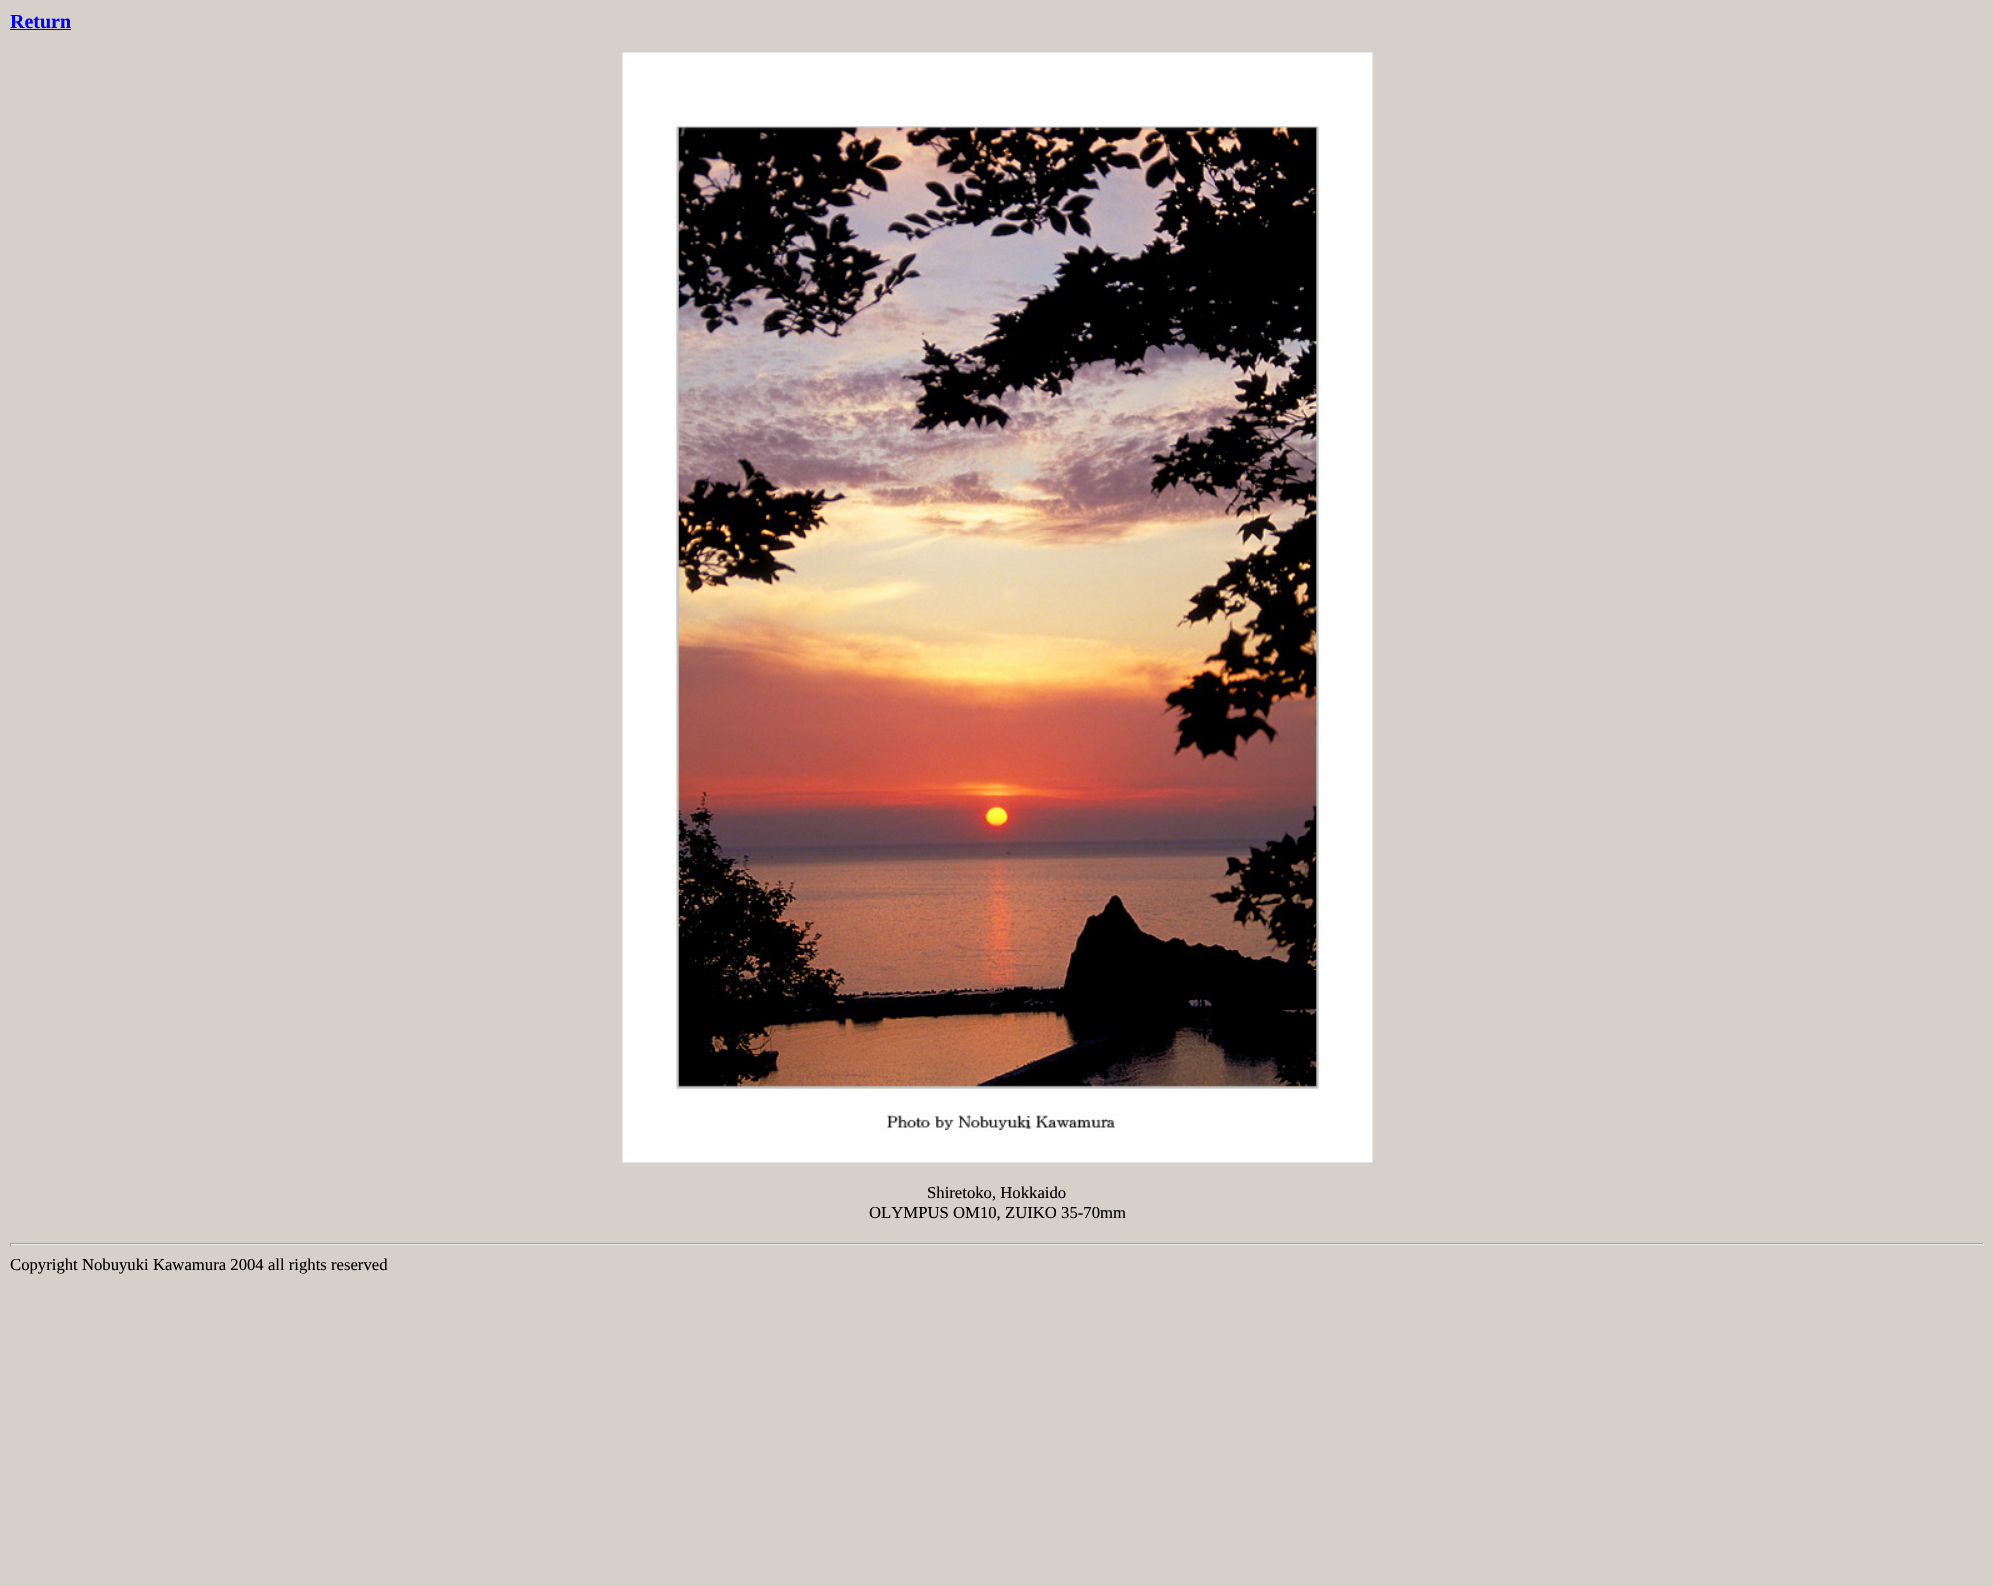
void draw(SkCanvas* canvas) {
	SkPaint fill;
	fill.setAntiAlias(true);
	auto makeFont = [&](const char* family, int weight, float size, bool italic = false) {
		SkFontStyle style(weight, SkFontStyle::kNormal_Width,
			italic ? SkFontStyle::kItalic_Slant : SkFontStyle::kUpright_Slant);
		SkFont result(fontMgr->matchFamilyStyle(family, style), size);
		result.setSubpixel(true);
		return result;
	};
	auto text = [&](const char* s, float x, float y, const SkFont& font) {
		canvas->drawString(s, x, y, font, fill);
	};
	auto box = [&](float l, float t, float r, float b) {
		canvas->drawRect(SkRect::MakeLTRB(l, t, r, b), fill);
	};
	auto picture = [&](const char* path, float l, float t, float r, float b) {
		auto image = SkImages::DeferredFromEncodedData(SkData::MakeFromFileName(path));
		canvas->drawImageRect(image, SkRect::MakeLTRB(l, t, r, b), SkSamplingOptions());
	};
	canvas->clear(0xFFD5D0CA);
	fill.setColor(0xFF0000FF);
	box(10, 29, 71, 30);
	picture("image0.png", 622, 52, 1373, 1163);
	fill.setColor(0xFF9F9F9F);
	box(10, 1243, 1984, 1244);
	fill.setColor(0xFFEEEEEE);
	box(1983, 1243, 1984, 1246);
	box(10, 1244, 1984, 1245);
	fill.setColor(0xFF9F9F9F);
	box(10, 1243, 11, 1246);
	auto font1 = makeFont("Liberation Serif", 700, 20);
	fill.setColor(0xFF0000FF);
	text("Return", 10, 28, font1);
	auto font2 = makeFont("Liberation Serif", 400, 16.7f);
	fill.setColor(0xFF000000);
	text("Shiretoko, Hokkaido", 927, 1198, font2);
	text("OLYMPUS OM10, ZUIKO 35-70mm", 869, 1218, font2);
	text("Copyright Nobuyuki Kawamura 2004 all rights reserved", 10, 1270, font2);
}
